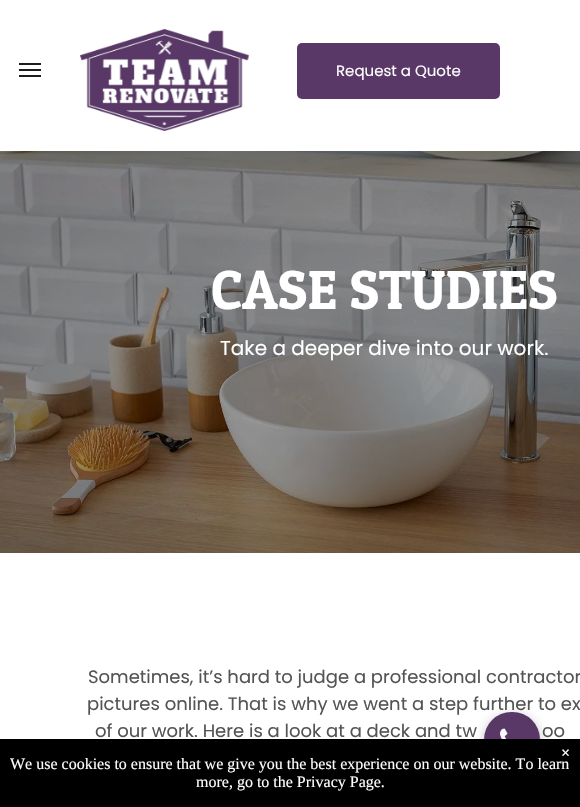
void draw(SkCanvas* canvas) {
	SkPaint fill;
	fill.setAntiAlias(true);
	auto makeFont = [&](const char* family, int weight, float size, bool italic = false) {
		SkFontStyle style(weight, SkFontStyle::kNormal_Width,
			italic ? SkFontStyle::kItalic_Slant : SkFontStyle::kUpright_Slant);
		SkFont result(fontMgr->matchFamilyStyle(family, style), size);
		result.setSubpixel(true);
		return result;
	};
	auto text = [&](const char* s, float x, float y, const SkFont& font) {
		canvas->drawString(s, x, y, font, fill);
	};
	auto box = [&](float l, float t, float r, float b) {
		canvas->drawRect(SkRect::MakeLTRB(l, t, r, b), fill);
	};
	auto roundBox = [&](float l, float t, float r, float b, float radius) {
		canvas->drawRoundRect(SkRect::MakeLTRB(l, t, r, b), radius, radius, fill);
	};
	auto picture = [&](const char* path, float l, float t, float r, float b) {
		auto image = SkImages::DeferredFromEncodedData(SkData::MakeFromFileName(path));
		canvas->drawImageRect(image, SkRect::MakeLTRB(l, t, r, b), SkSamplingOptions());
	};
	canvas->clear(0xFFFFFFFF);
	fill.setColor(0xFF1D1D1D);
	box(19, 63, 41, 65);
	box(19, 69, 41, 71);
	box(19, 75, 41, 77);
	picture("image0.png", 80, 29, 249, 131);
	fill.setColor(0xFF593867);
	roundBox(297, 43, 500, 99, 5);
	picture("image1.png", 0, 151, 580, 553);
	fill.setColor(0x40000000);
	fill.setMaskFilter(SkMaskFilter::MakeBlur(kNormal_SkBlurStyle, 5.5f));
	canvas->drawRoundRect(SkRect::MakeLTRB(484, 715, 540, 770), 27.5f, 27.5f, fill);
	fill.setMaskFilter(nullptr);
	auto font1 = makeFont("Poppins", 400, 15);
	fill.setColor(0xFFFFFFFF);
	text("Request a Quote", 336, 76, font1);
	auto font2 = makeFont("Patua One", 400, 55);
	text("CASE STUDIES", 211, 309, font2);
	auto font3 = makeFont("Poppins", 400, 20);
	text("Take a deeper dive into our work.", 220, 355, font3);
	auto font4 = makeFont("Poppins", 400, 18);
	fill.setColor(0xFF545454);
	text("Sometimes, it’s hard to judge a professional contractor", 88, 683, font4);
	text("pictures online. That is why we went a step further to ex", 87, 710, font4);
	text("of our work. Here is a look at a deck and tw", 95, 737, font4);
	text("oo", 542, 737, font4);
	fill.setColor(0xFF593867);
	roundBox(484, 712, 540, 767, 27.5f);
	picture("image2.png", 500, 728, 508, 739);
	fill.setColor(0xFF000000);
	box(0, 739, 580, 807);
	auto font5 = makeFont("Liberation Serif", 700, 16);
	fill.setColor(0xFFFFFFFF);
	text("×", 561, 758, font5);
	auto font6 = makeFont("Liberation Serif", 400, 16);
	text("We use cookies to ensure that we give you the best experience on our website. To learn", 10, 769, font6);
	text("more, go to the Privacy Page.", 196, 787, font6);
}
